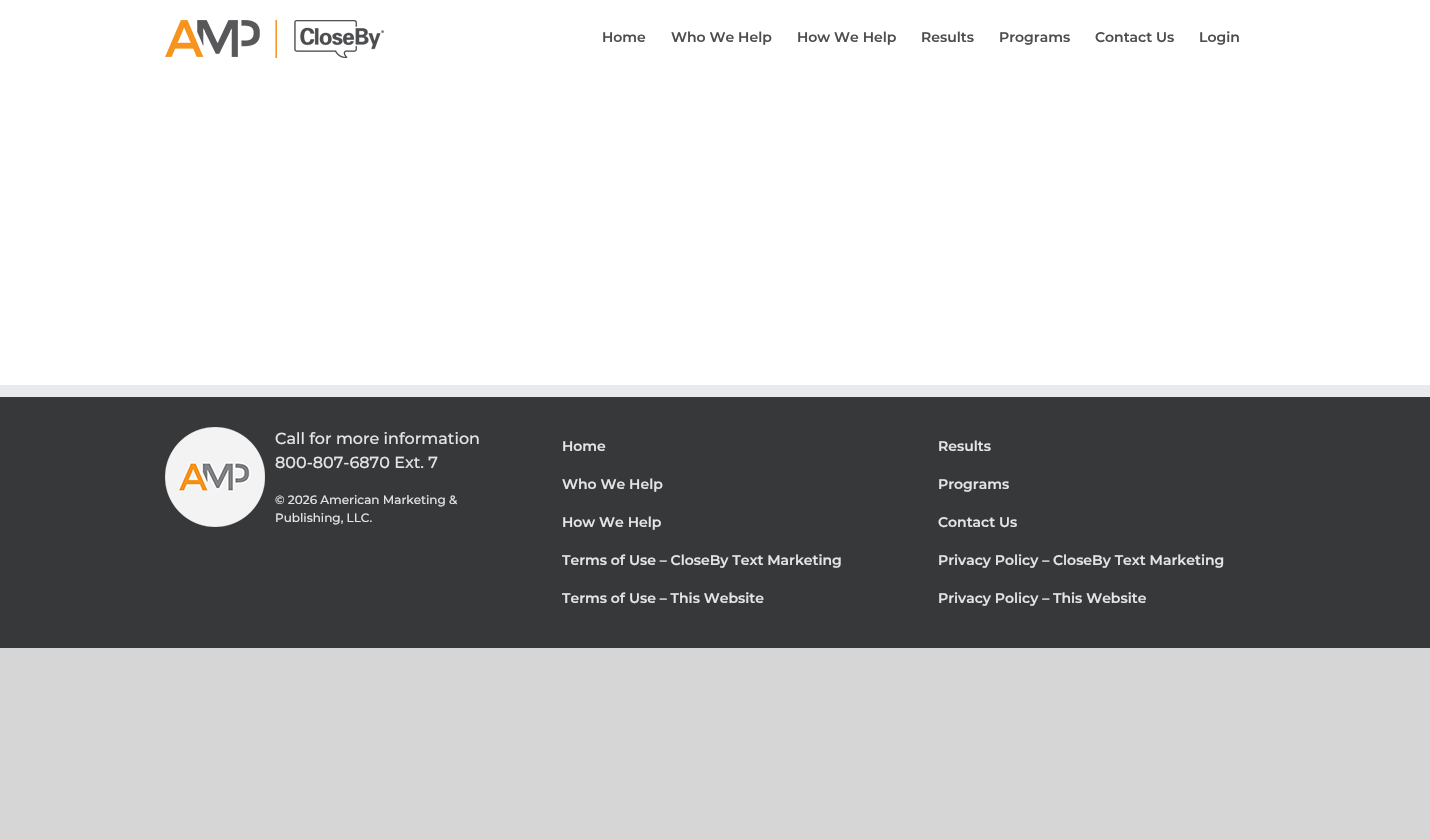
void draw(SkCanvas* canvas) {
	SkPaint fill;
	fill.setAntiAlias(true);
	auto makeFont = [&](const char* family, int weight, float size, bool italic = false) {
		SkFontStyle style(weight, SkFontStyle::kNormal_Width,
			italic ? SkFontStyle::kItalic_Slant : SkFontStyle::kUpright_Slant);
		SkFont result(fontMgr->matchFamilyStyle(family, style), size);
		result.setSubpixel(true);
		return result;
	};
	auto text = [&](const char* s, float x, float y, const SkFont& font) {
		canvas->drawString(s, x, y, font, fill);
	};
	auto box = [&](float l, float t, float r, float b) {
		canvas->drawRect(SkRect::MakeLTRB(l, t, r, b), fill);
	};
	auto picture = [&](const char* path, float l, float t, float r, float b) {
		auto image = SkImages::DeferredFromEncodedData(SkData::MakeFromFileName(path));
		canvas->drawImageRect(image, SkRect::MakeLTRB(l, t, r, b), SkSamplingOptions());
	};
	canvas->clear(0xFFD7D6D6);
	fill.setColor(0xFFFFFFFF);
	box(0, 0, 1430, 385);
	picture("image0.png", 165, 20, 384, 58);
	fill.setColor(0xFF363839);
	box(0, 397, 1430, 648);
	fill.setColor(0xFFE9EAEE);
	box(0, 385, 1430, 397);
	picture("image1.png", 165, 427, 265, 527);
	auto font1 = makeFont("Montserrat", 600, 14);
	fill.setColor(0xFF4C4D4F);
	text("Home", 602, 42, font1);
	text("Who We Help", 671, 42, font1);
	text("How We Help", 797, 42, font1);
	text("Results", 921, 42, font1);
	text("Programs", 999, 42, font1);
	text("Contact Us", 1095, 42, font1);
	text("Login", 1199, 42, font1);
	auto font2 = makeFont("Montserrat", 500, 16);
	fill.setColor(0xFFE5E5E5);
	text("Call for more information", 275, 444, font2);
	text("800-807-6870 Ext. 7", 275, 468, font2);
	auto font3 = makeFont("Montserrat", 500, 12);
	text("© 2026 American Marketing &", 275, 504, font3);
	text("Publishing, LLC.", 275, 522, font3);
	text("Home", 562, 451, font1);
	text("Who We Help", 562, 489, font1);
	text("How We Help", 562, 527, font1);
	text("Terms of Use – CloseBy Text Marketing", 562, 565, font1);
	text("Terms of Use – This Website", 562, 603, font1);
	text("Results", 938, 451, font1);
	text("Programs", 938, 489, font1);
	text("Contact Us", 938, 527, font1);
	text("Privacy Policy – CloseBy Text Marketing", 938, 565, font1);
	text("Privacy Policy – This Website", 938, 603, font1);
}
